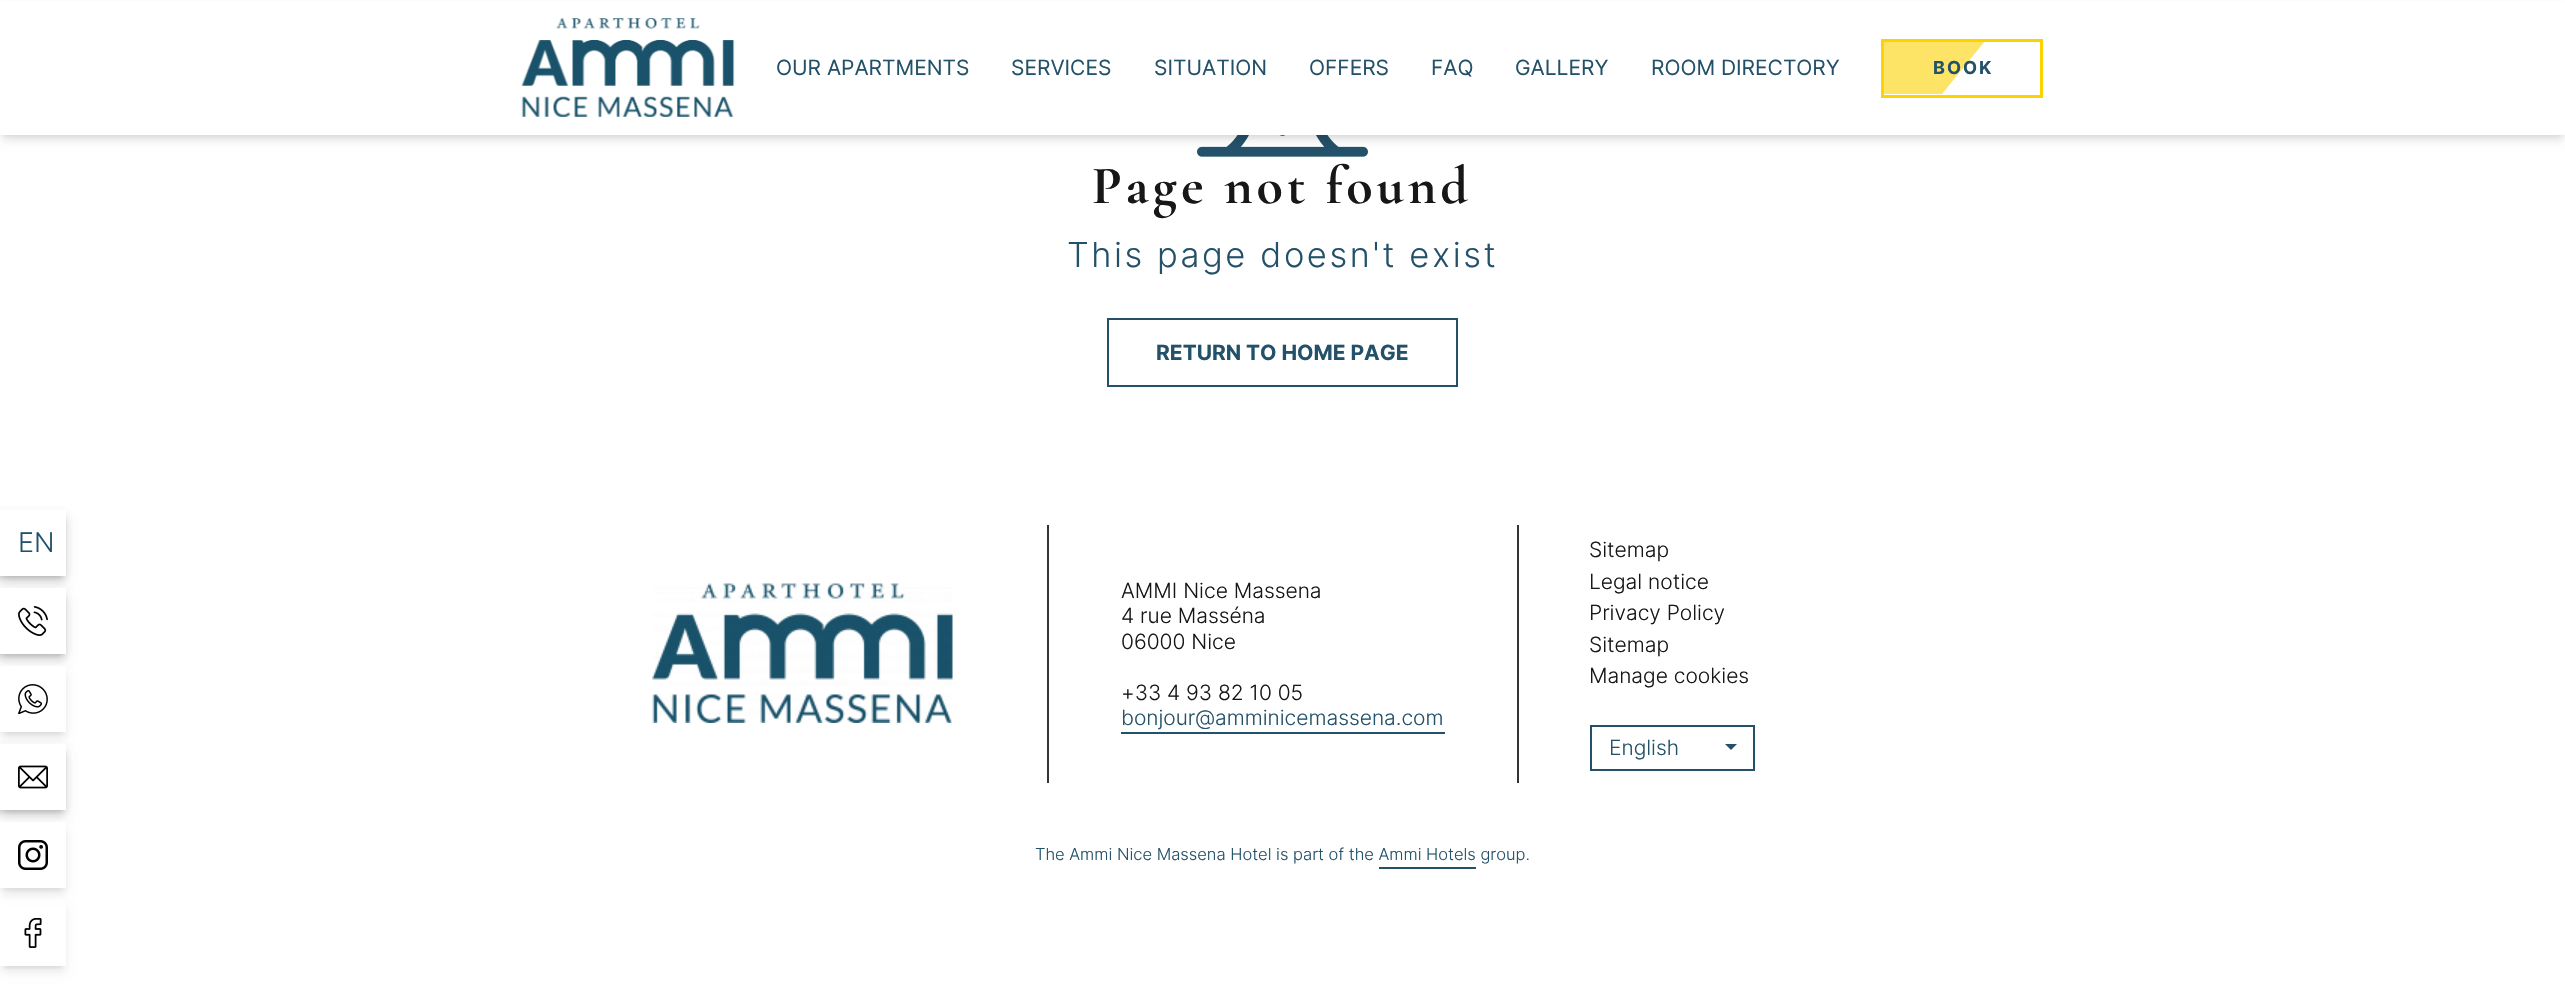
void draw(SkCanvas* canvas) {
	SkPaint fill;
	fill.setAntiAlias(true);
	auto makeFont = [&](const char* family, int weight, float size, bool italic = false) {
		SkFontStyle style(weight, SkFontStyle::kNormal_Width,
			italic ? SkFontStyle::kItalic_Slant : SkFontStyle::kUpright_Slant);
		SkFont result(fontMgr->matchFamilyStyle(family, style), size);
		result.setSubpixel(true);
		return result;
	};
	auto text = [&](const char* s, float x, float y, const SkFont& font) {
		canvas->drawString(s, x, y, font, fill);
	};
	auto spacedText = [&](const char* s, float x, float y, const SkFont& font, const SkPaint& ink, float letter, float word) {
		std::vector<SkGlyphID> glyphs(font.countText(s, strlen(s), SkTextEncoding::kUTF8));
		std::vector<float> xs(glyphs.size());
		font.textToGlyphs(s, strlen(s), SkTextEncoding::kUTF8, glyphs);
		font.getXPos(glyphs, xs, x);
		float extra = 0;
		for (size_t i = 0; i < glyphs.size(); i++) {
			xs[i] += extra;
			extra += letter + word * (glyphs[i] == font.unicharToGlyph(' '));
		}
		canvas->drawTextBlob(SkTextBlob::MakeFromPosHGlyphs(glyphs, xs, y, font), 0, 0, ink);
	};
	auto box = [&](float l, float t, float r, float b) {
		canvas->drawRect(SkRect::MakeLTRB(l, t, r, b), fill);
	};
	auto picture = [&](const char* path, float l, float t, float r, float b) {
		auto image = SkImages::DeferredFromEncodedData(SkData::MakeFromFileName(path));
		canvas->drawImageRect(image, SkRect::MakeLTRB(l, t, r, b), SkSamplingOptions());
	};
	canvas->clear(0xFFFFFFFF);
	picture("image1.png", 1197, 135, 1368, 157);
	fill.setColor(0x1A000000);
	fill.setMaskFilter(SkMaskFilter::MakeBlur(kNormal_SkBlurStyle, 3));
	canvas->drawRect(SkRect::MakeLTRB(3, 6, 2562, 135), fill);
	fill.setMaskFilter(nullptr);
	fill.setMaskFilter(SkMaskFilter::MakeBlur(kNormal_SkBlurStyle, 4.5f));
	canvas->drawRect(SkRect::MakeLTRB(2, 8, 2564, 140), fill);
	fill.setMaskFilter(nullptr);
	fill.setColor(0xFFFFFFFF);
	box(0, 1, 2565, 135);
	picture("image0.png", 521, 18, 735, 117);
	fill.setStyle(SkPaint::kStroke_Style);
	fill.setStrokeWidth(3);
	fill.setColor(0xFFFCD202);
	canvas->drawRect(SkRect::MakeLTRB(1882.5f, 40.5f, 2041.5f, 96.5f), fill);
	canvas->save();
	canvas->clipRect(SkRect::MakeLTRB(1884, 42, 2040, 95));
	fill.setStyle(SkPaint::kFill_Style);
	fill.setColor(0xFFFDE467);
	canvas->drawPath(SkPathBuilder().moveTo(1759, 41).lineTo(1985, 41).lineTo(1942, 94).lineTo(1717, 94).close().detach(), fill);
	canvas->restore();
	fill.setStyle(SkPaint::kStroke_Style);
	fill.setStrokeWidth(2);
	fill.setColor(0xFF235169);
	canvas->drawRect(SkRect::MakeLTRB(1108, 319, 1457, 386), fill);
	fill.setStyle(SkPaint::kFill_Style);
	fill.setColor(0x1A000000);
	fill.setMaskFilter(SkMaskFilter::MakeBlur(kNormal_SkBlurStyle, 3));
	canvas->drawRect(SkRect::MakeLTRB(-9, 516, 63, 576), fill);
	fill.setMaskFilter(nullptr);
	fill.setMaskFilter(SkMaskFilter::MakeBlur(kNormal_SkBlurStyle, 4.5f));
	canvas->drawRect(SkRect::MakeLTRB(-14, 518, 65, 581), fill);
	fill.setMaskFilter(nullptr);
	fill.setMaskFilter(SkMaskFilter::MakeBlur(kNormal_SkBlurStyle, 3));
	canvas->drawRect(SkRect::MakeLTRB(3, 516, 63, 576), fill);
	fill.setMaskFilter(nullptr);
	fill.setMaskFilter(SkMaskFilter::MakeBlur(kNormal_SkBlurStyle, 4.5f));
	canvas->drawRect(SkRect::MakeLTRB(2, 518, 65, 581), fill);
	fill.setMaskFilter(nullptr);
	fill.setColor(0xFFFFFFFF);
	box(0, 510, 66, 576);
	fill.setColor(0x1A000000);
	fill.setMaskFilter(SkMaskFilter::MakeBlur(kNormal_SkBlurStyle, 3));
	canvas->drawRect(SkRect::MakeLTRB(-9, 594, 63, 654), fill);
	fill.setMaskFilter(nullptr);
	fill.setMaskFilter(SkMaskFilter::MakeBlur(kNormal_SkBlurStyle, 4.5f));
	canvas->drawRect(SkRect::MakeLTRB(-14, 596, 65, 659), fill);
	fill.setMaskFilter(nullptr);
	fill.setMaskFilter(SkMaskFilter::MakeBlur(kNormal_SkBlurStyle, 3));
	canvas->drawRect(SkRect::MakeLTRB(3, 594, 63, 654), fill);
	fill.setMaskFilter(nullptr);
	fill.setMaskFilter(SkMaskFilter::MakeBlur(kNormal_SkBlurStyle, 4.5f));
	canvas->drawRect(SkRect::MakeLTRB(2, 596, 65, 659), fill);
	fill.setMaskFilter(nullptr);
	fill.setColor(0xFFFFFFFF);
	box(0, 588, 66, 654);
	picture("image2.png", 18, 606, 48, 636);
	fill.setColor(0x1A000000);
	fill.setMaskFilter(SkMaskFilter::MakeBlur(kNormal_SkBlurStyle, 3));
	canvas->drawRect(SkRect::MakeLTRB(3, 672, 63, 732), fill);
	fill.setMaskFilter(nullptr);
	fill.setMaskFilter(SkMaskFilter::MakeBlur(kNormal_SkBlurStyle, 4.5f));
	canvas->drawRect(SkRect::MakeLTRB(2, 674, 65, 737), fill);
	fill.setMaskFilter(nullptr);
	fill.setColor(0xFFFFFFFF);
	box(0, 666, 66, 732);
	picture("image3.png", 18, 684, 48, 714);
	fill.setColor(0x1A000000);
	fill.setMaskFilter(SkMaskFilter::MakeBlur(kNormal_SkBlurStyle, 3));
	canvas->drawRect(SkRect::MakeLTRB(-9, 750, 63, 810), fill);
	fill.setMaskFilter(nullptr);
	fill.setMaskFilter(SkMaskFilter::MakeBlur(kNormal_SkBlurStyle, 4.5f));
	canvas->drawRect(SkRect::MakeLTRB(-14, 752, 65, 815), fill);
	fill.setMaskFilter(nullptr);
	fill.setMaskFilter(SkMaskFilter::MakeBlur(kNormal_SkBlurStyle, 3));
	canvas->drawRect(SkRect::MakeLTRB(3, 750, 63, 810), fill);
	fill.setMaskFilter(nullptr);
	fill.setMaskFilter(SkMaskFilter::MakeBlur(kNormal_SkBlurStyle, 4.5f));
	canvas->drawRect(SkRect::MakeLTRB(2, 752, 65, 815), fill);
	fill.setMaskFilter(nullptr);
	fill.setColor(0xFFFFFFFF);
	box(0, 744, 66, 810);
	picture("image4.png", 18, 765, 48, 789);
	fill.setColor(0x1A000000);
	fill.setMaskFilter(SkMaskFilter::MakeBlur(kNormal_SkBlurStyle, 3));
	canvas->drawRect(SkRect::MakeLTRB(3, 828, 63, 888), fill);
	fill.setMaskFilter(nullptr);
	fill.setMaskFilter(SkMaskFilter::MakeBlur(kNormal_SkBlurStyle, 4.5f));
	canvas->drawRect(SkRect::MakeLTRB(2, 830, 65, 893), fill);
	fill.setMaskFilter(nullptr);
	fill.setColor(0xFFFFFFFF);
	box(0, 822, 66, 888);
	picture("image5.png", 18, 840, 48, 870);
	canvas->save();
	canvas->clipRect(SkRect::MakeLTRB(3, 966, 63, 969));
	fill.setColor(0x1A000000);
	fill.setMaskFilter(SkMaskFilter::MakeBlur(kNormal_SkBlurStyle, 3));
	canvas->drawRect(SkRect::MakeLTRB(3, 906, 63, 966), fill);
	fill.setMaskFilter(nullptr);
	canvas->restore();
	canvas->save();
	canvas->clipPath(SkPathBuilder(SkPathFillType::kEvenOdd).moveTo(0, 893).lineTo(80, 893).lineTo(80, 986).lineTo(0, 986).close().moveTo(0, 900).lineTo(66, 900).lineTo(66, 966).lineTo(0, 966).close().detach(), true);
	fill.setMaskFilter(SkMaskFilter::MakeBlur(kNormal_SkBlurStyle, 4.5f));
	canvas->drawRect(SkRect::MakeLTRB(2, 908, 65, 971), fill);
	fill.setMaskFilter(nullptr);
	canvas->restore();
	picture("image6.png", 24, 918, 42, 948);
	picture("image7.png", 652, 583, 953, 723);
	fill.setColor(0xFF343434);
	box(1047, 525, 1049, 783);
	fill.setColor(0xFF235169);
	box(1121, 732, 1445, 734);
	fill.setColor(0xFF343434);
	box(1517, 525, 1519, 783);
	fill.setStyle(SkPaint::kStroke_Style);
	fill.setColor(0xFF235169);
	canvas->drawRect(SkRect::MakeLTRB(1591, 726, 1754, 770), fill);
	fill.setStyle(SkPaint::kFill_Style);
	canvas->drawPath(SkPathBuilder().moveTo(1725, 744).lineTo(1737, 744).lineTo(1731, 750).close().detach(), fill);
	box(1379, 867, 1476, 869);
	auto font1 = makeFont("Inter", 400, 21);
	text("OUR APARTMENTS", 776, 75, font1);
	text("SERVICES", 1011, 75, font1);
	text("SITUATION", 1154, 75, font1);
	text("OFFERS", 1309, 75, font1);
	text("FAQ", 1431, 75, font1);
	text("GALLERY", 1515, 75, font1);
	text("ROOM DIRECTORY", 1651, 75, font1);
	auto font2 = makeFont("Inter", 700, 18);
	spacedText("BOOK", 1933, 74, font2, fill, 2, 0);
	auto font3 = makeFont("Cormorant Garamond", 700, 54);
	fill.setColor(0xFF171717);
	spacedText("Page not found", 1092, 203, font3, fill, 4, 0);
	auto font4 = makeFont("Inter", 300, 34.5f);
	fill.setColor(0xFF235169);
	spacedText("This page doesn't exist", 1067, 267, font4, fill, 2.55f, 0);
	auto font5 = makeFont("Inter", 700, 21);
	text("RETURN TO HOME PAGE", 1156, 360, font5);
	auto font6 = makeFont("Inter", 300, 27);
	text("EN", 18, 552, font6);
	auto font7 = makeFont("Inter", 300, 21);
	fill.setColor(0xFF171717);
	text("AMMI Nice Massena", 1121, 598, font7);
	text("4 rue Masséna", 1121, 623, font7);
	text("06000 Nice", 1121, 649, font7);
	text("+33 4 93 82 10 05", 1121, 700, font7);
	fill.setColor(0xFF235169);
	text("bonjour@amminicemassena.com", 1121, 725, font7);
	fill.setColor(0xFF171717);
	text("Sitemap", 1589, 557, font7);
	text("Legal notice", 1589, 589, font7);
	text("Privacy Policy", 1589, 620, font7);
	text("Sitemap", 1589, 652, font7);
	text("Manage cookies", 1589, 683, font7);
	fill.setColor(0xFF235169);
	text("English", 1609, 755, font7);
	auto font8 = makeFont("Inter", 300, 16.5f);
	text("The Ammi Nice Massena Hotel is part of the Ammi Hotels group.", 1035, 860, font8);
}
